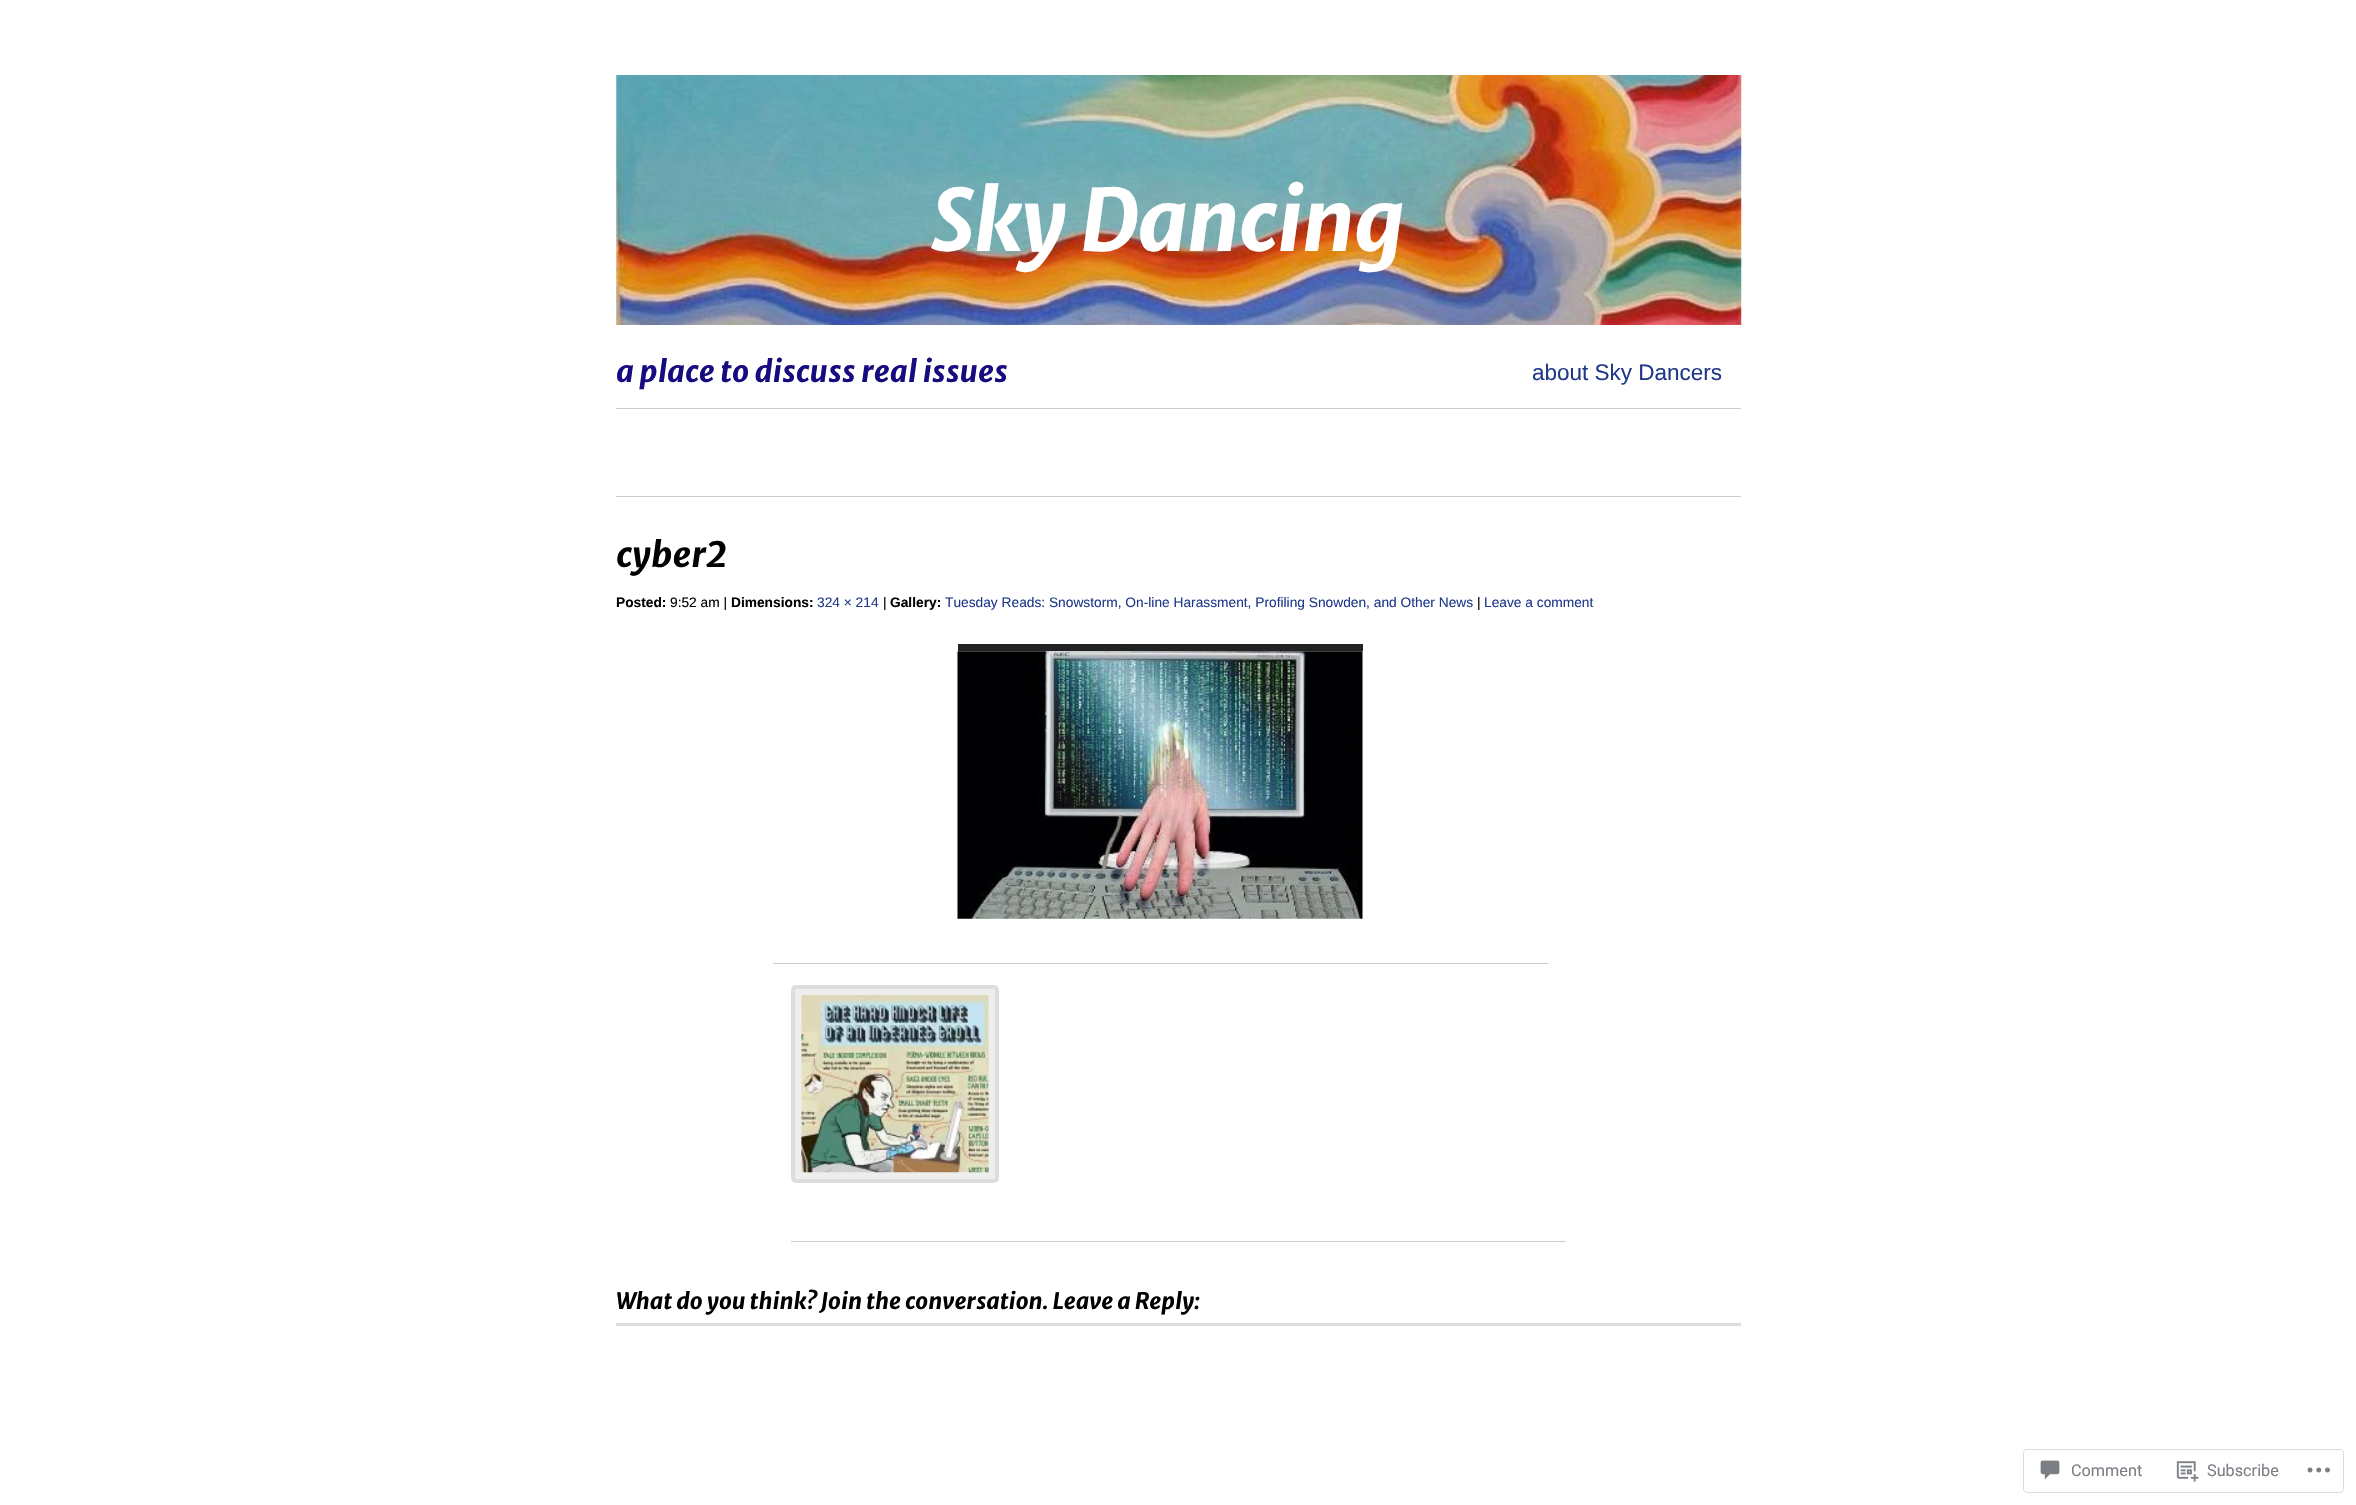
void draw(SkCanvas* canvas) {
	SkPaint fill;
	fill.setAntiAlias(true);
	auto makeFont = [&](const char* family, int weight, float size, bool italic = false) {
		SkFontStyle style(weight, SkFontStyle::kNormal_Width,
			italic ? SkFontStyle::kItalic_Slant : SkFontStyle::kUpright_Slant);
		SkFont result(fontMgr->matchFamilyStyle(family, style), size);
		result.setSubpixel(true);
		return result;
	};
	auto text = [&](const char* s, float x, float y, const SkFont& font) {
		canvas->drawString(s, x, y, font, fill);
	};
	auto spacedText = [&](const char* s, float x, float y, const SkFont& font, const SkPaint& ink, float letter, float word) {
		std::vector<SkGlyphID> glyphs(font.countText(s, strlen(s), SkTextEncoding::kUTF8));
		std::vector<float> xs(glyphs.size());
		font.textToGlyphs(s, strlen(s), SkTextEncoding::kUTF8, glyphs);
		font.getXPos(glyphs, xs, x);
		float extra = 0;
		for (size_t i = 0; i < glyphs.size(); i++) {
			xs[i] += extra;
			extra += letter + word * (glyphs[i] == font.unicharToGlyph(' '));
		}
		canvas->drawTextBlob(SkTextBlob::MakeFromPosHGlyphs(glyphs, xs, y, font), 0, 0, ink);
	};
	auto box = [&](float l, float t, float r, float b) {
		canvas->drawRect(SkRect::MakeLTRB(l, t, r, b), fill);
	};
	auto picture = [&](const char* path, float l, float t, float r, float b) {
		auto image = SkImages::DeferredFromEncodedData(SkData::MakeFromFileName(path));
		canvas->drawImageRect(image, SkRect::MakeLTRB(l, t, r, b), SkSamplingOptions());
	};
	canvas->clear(0xFFFFFFFF);
	fill.setColor(0xFFCCCCCC);
	box(616, 408, 1741, 409);
	picture("image0.png", 616, 75, 1742, 325);
	box(616, 496, 1741, 497);
	fill.setColor(0xFF222222);
	box(958, 644, 1363, 651);
	picture("image1.png", 957, 651, 1363, 919);
	fill.setColor(0xFFCCCCCC);
	box(773, 963, 1548, 964);
	fill.setColor(0xFFEEEEEE);
	canvas->drawRoundRect(SkRect::MakeLTRB(793, 987, 997, 1181), 3, 3, fill);
	fill.setStyle(SkPaint::kStroke_Style);
	fill.setStrokeWidth(4);
	fill.setColor(0xFFDDDDDD);
	canvas->drawRoundRect(SkRect::MakeLTRB(793, 987, 997, 1181), 3, 3, fill);
	picture("image2.png", 801, 995, 989, 1173);
	fill.setStyle(SkPaint::kFill_Style);
	fill.setColor(0xFFCCCCCC);
	box(791, 1241, 1566, 1242);
	fill.setColor(0xFFDCDCDE);
	box(616, 1323, 1741, 1326);
	fill.setStyle(SkPaint::kStroke_Style);
	fill.setStrokeWidth(1);
	fill.setColor(0xFFDDDDDF);
	canvas->drawRoundRect(SkRect::MakeLTRB(2023.5f, 1449.5f, 2343.5f, 1492.5f), 3.5f, 3.5f, fill);
	picture("image3.png", 2040, 1460, 2060, 1480);
	picture("image4.png", 2176, 1461, 2199, 1482);
	picture("image5.png", 2307, 1467, 2330, 1473);
	auto font1 = makeFont("Merriweather Sans", 700, 85, true);
	fill.setStyle(SkPaint::kFill_Style);
	fill.setColor(0xFFFFFFFF);
	spacedText("Sky Dancing", 931, 251, font1, fill, -1.25f, 0);
	auto font2 = makeFont("Merriweather Sans", 700, 30, true);
	fill.setColor(0xFF170B80);
	text("a place to discuss real issues", 616, 382, font2);
	auto font3 = makeFont("Liberation Sans", 400, 22.5f);
	fill.setColor(0xFF203A89);
	text("about Sky Dancers", 1532, 380, font3);
	auto font4 = makeFont("Merriweather Sans", 700, 35, true);
	fill.setColor(0xFF000000);
	text("cyber2", 616, 567, font4);
	auto font5 = makeFont("Liberation Sans", 700, 13.75f);
	text("Posted:", 616, 607, font5);
	auto font6 = makeFont("Liberation Sans", 400, 13.75f);
	text("9:52 am |", 670, 607, font6);
	text("Dimensions:", 731, 607, font5);
	fill.setColor(0xFF203A89);
	text("324 × 214", 817, 607, font6);
	fill.setColor(0xFF000000);
	text("|", 883, 607, font6);
	text("Gallery:", 890, 607, font5);
	fill.setColor(0xFF203A89);
	text("Tuesday Reads: Snowstorm, On-line Harassment, Profiling Snowden, and Other News", 945, 607, font6);
	fill.setColor(0xFF000000);
	text("|", 1477, 607, font6);
	fill.setColor(0xFF203A89);
	text("Leave a comment", 1484, 607, font6);
	auto font7 = makeFont("Merriweather Sans", 700, 22.5f, true);
	fill.setColor(0xFF000000);
	text("What do you think? Join the conversation. Leave a Reply:", 616, 1309, font7);
	auto font8 = makeFont("Roboto", 400, 16.25f);
	fill.setColor(0xFF7B7F85);
	text("Comment", 2071, 1476, font8);
	text("Subscribe", 2207, 1476, font8);
}
